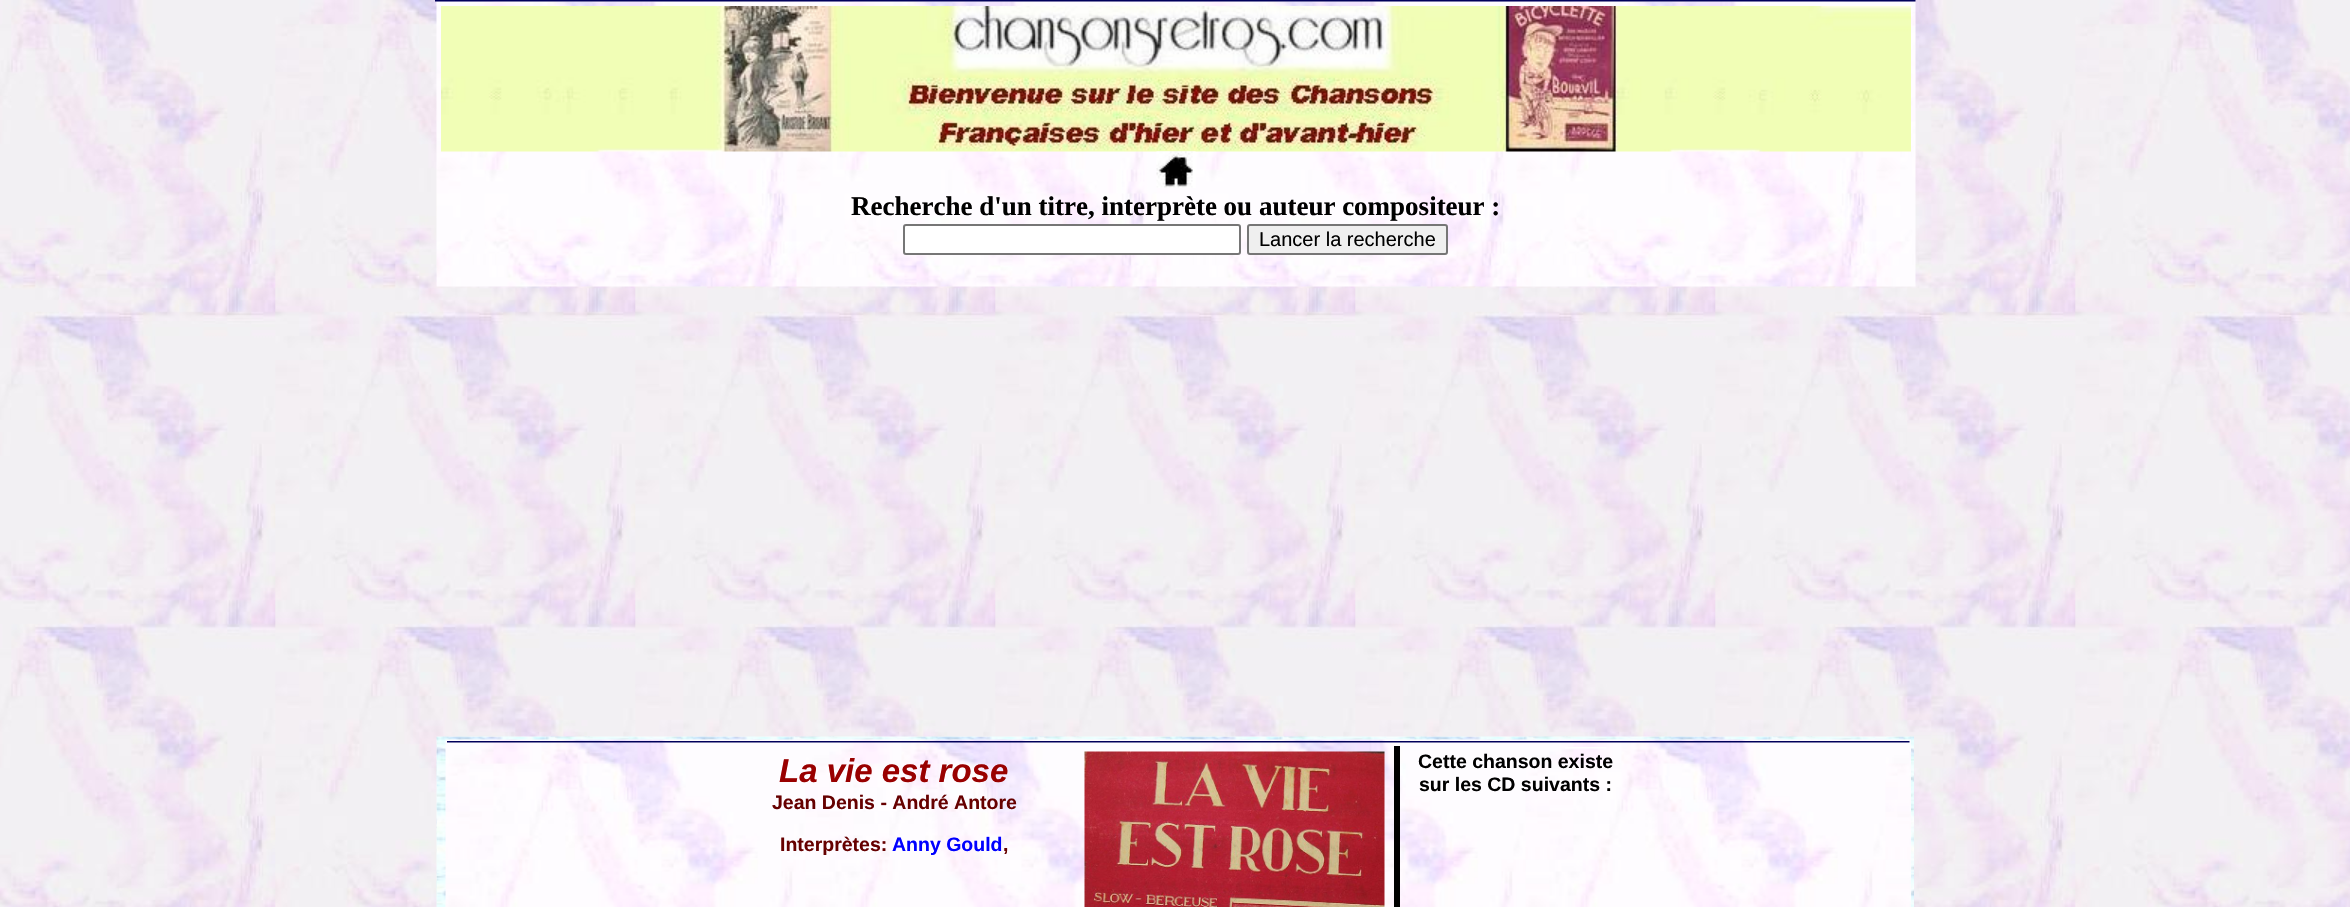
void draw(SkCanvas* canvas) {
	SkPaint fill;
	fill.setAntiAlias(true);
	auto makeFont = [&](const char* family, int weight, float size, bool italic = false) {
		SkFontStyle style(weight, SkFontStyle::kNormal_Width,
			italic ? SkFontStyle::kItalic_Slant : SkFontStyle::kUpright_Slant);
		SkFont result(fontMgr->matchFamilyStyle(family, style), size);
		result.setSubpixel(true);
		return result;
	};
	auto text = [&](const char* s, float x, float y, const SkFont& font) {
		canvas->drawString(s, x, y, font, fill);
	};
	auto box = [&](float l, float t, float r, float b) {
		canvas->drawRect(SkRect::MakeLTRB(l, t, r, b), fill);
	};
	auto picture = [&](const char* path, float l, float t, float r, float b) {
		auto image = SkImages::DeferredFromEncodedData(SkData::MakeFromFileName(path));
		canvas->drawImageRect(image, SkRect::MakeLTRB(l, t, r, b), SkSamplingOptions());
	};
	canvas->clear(0xFFFFFFFF);
	picture("image0.png", 0, 0, 2350, 907);
	picture("image2.png", 436, 1, 1916, 287);
	picture("image1.png", 435, 0, 1916, 2);
	picture("image3.png", 441, 6, 1911, 152);
	picture("image4.png", 1156, 151, 1196, 188);
	fill.setColor(0xFFFFFFFF);
	canvas->drawRoundRect(SkRect::MakeLTRB(904, 225, 1240, 254), 2, 2, fill);
	fill.setStyle(SkPaint::kStroke_Style);
	fill.setStrokeWidth(2);
	fill.setColor(0xFF767676);
	canvas->drawRoundRect(SkRect::MakeLTRB(904, 225, 1240, 254), 2, 2, fill);
	fill.setStyle(SkPaint::kFill_Style);
	fill.setColor(0xFFEFEFEF);
	canvas->drawRoundRect(SkRect::MakeLTRB(1248, 225, 1447, 254), 2, 2, fill);
	fill.setStyle(SkPaint::kStroke_Style);
	fill.setColor(0xFF767676);
	canvas->drawRoundRect(SkRect::MakeLTRB(1248, 225, 1447, 254), 2, 2, fill);
	picture("image5.png", 436, 736, 1914, 907);
	picture("image6.png", 445, 739, 1911, 907);
	picture("image7.png", 447, 741, 1910, 743);
	picture("image8.png", 1084, 751, 1385, 907);
	fill.setStyle(SkPaint::kFill_Style);
	fill.setColor(0xFF000000);
	box(1394, 746, 1400, 907);
	picture("image9.png", 1565, 747, 1607, 749);
	auto font1 = makeFont("Liberation Serif", 700, 27);
	text("Recherche d'un titre, interprète ou auteur compositeur :", 851, 215, font1);
	auto font2 = makeFont("Liberation Sans", 400, 20);
	text("Lancer la recherche", 1259, 246, font2);
	auto font3 = makeFont("Liberation Sans", 700, 33, true);
	fill.setColor(0xFF990000);
	text("La vie est rose", 779, 782, font3);
	auto font4 = makeFont("Liberation Sans", 700, 19.5f);
	fill.setColor(0xFF660000);
	text("Jean Denis - André Antore", 772, 809, font4);
	text("Interprètes:", 780, 851, font4);
	fill.setColor(0xFF0000FF);
	text("Anny Gould", 892, 851, font4);
	fill.setColor(0xFF660000);
	text(",", 1003, 851, font4);
	fill.setColor(0xFF000000);
	text("Cette chanson existe", 1418, 768, font4);
	text("sur les CD suivants :", 1419, 791, font4);
}
